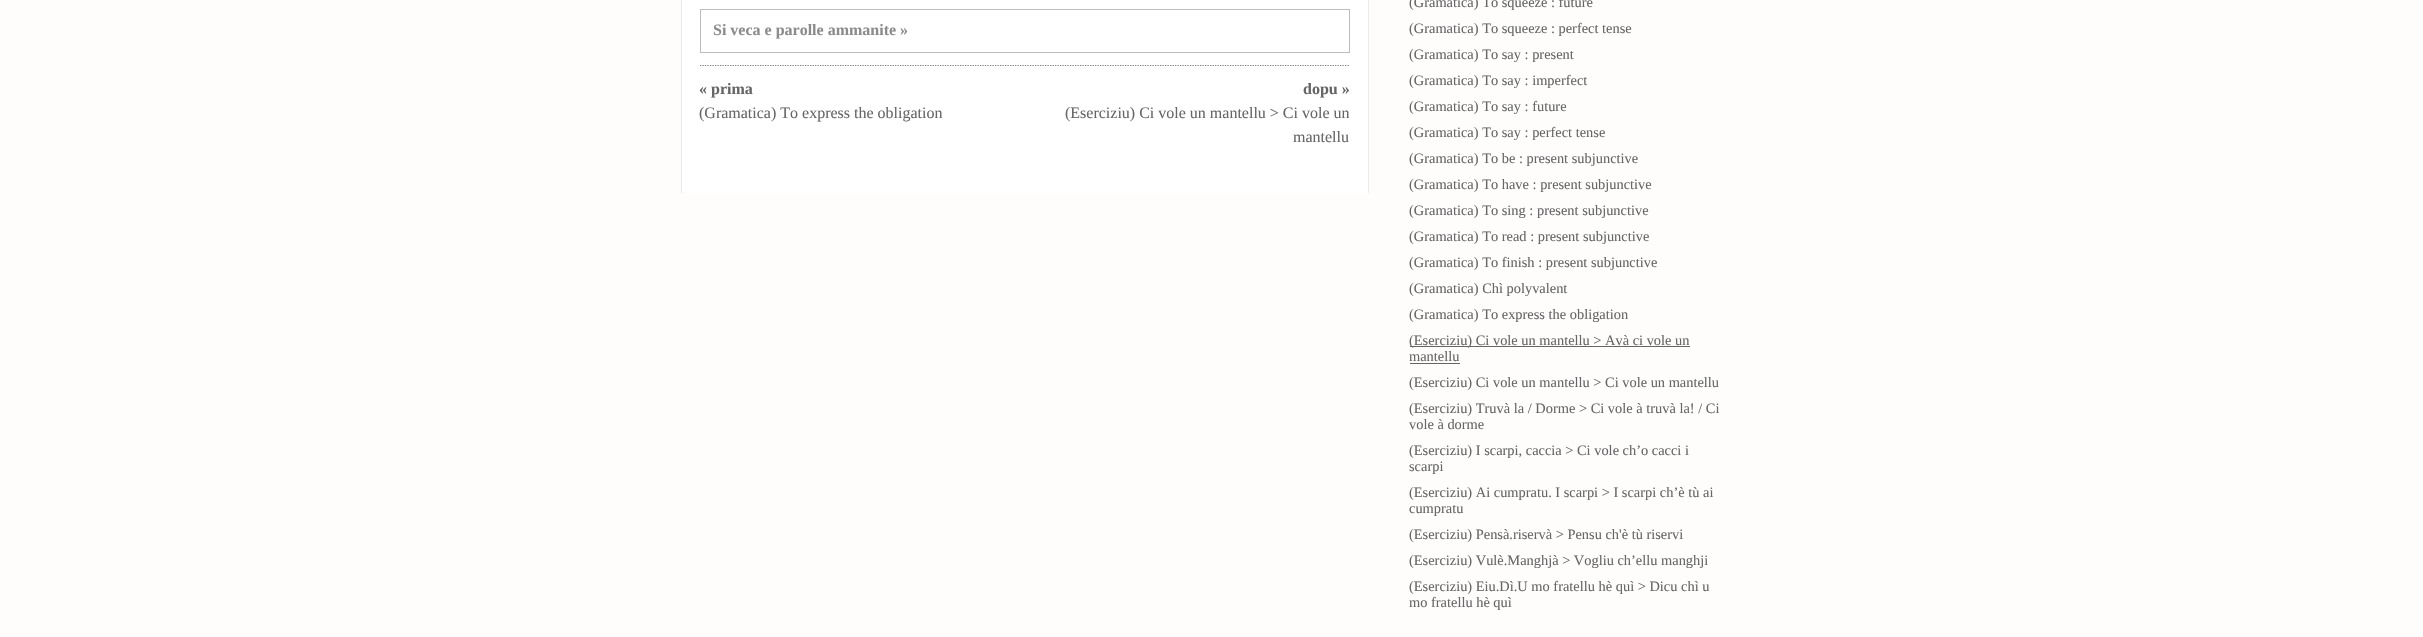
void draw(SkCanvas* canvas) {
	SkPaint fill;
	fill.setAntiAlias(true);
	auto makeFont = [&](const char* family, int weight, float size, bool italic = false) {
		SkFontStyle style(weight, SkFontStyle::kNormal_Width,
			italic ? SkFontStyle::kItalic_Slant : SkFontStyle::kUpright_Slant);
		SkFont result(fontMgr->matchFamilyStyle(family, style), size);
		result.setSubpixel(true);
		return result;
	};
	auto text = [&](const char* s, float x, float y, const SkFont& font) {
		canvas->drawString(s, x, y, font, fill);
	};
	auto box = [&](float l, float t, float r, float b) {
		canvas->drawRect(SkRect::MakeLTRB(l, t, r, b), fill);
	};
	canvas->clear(0xFFFFFDFC);
	fill.setColor(0xFFFFFFFF);
	box(682, 0, 1368, 193);
	fill.setColor(0xFFEAEAEA);
	box(1368, 0, 1369, 193);
	box(681, 0, 682, 193);
	fill.setStyle(SkPaint::kStroke_Style);
	fill.setStrokeWidth(1.2f);
	fill.setColor(0xFF797979);
	fill.setPathEffect(SkDashPathEffect::Make({{1.25f, 1.25f}}, 0));
	canvas->drawPath(SkPathBuilder().moveTo(700, 65.5f).lineTo(1350, 65.5f).detach(), fill);
	fill.setPathEffect(nullptr);
	fill.setStrokeWidth(1);
	fill.setColor(0xFFBCBCBC);
	canvas->drawRect(SkRect::MakeLTRB(700.5f, 9.5f, 1349.5f, 52.5f), fill);
	fill.setStyle(SkPaint::kFill_Style);
	fill.setColor(0xFF666666);
	box(1410, 346, 1690, 347);
	box(1410, 363, 1460, 364);
	auto font1 = makeFont("Liberation Serif", 700, 16);
	fill.setColor(0xFF8C8C8C);
	text("Si veca e parolle ammanite »", 713, 35, font1);
	fill.setColor(0xFF666666);
	text("« prima", 699, 94, font1);
	auto font2 = makeFont("Liberation Serif", 400, 16);
	text("(Gramatica) To express the obligation", 699, 118, font2);
	text("dopu »", 1303, 94, font1);
	text("(Eserciziu) Ci vole un mantellu > Ci vole un", 1065, 118, font2);
	text("mantellu", 1293, 142, font2);
	auto font3 = makeFont("Liberation Serif", 400, 14.4f);
	text("(Gramatica) To squeeze : future", 1409, 7, font3);
	text("(Gramatica) To squeeze : perfect tense", 1409, 33, font3);
	text("(Gramatica) To say : present", 1409, 59, font3);
	text("(Gramatica) To say : imperfect", 1409, 85, font3);
	text("(Gramatica) To say : future", 1409, 111, font3);
	text("(Gramatica) To say : perfect tense", 1409, 137, font3);
	text("(Gramatica) To be : present subjunctive", 1409, 163, font3);
	text("(Gramatica) To have : present subjunctive", 1409, 189, font3);
	text("(Gramatica) To sing : present subjunctive", 1409, 215, font3);
	text("(Gramatica) To read : present subjunctive", 1409, 241, font3);
	text("(Gramatica) To finish : present subjunctive", 1409, 267, font3);
	text("(Gramatica) Chì polyvalent", 1409, 293, font3);
	text("(Gramatica) To express the obligation", 1409, 319, font3);
	text("(Eserciziu) Ci vole un mantellu > Avà ci vole un", 1409, 345, font3);
	text("mantellu", 1409, 361, font3);
	text("(Eserciziu) Ci vole un mantellu > Ci vole un mantellu", 1409, 387, font3);
	text("(Eserciziu) Truvà la / Dorme > Ci vole à truvà la! / Ci", 1409, 413, font3);
	text("vole à dorme", 1409, 429, font3);
	text("(Eserciziu) I scarpi, caccia > Ci vole ch’o cacci i", 1409, 455, font3);
	text("scarpi", 1409, 471, font3);
	text("(Eserciziu) Ai cumpratu. I scarpi > I scarpi ch’è tù ai", 1409, 497, font3);
	text("cumpratu", 1409, 513, font3);
	text("(Eserciziu) Pensà.riservà > Pensu ch'è tù riservi", 1409, 539, font3);
	text("(Eserciziu) Vulè.Manghjà > Vogliu ch’ellu manghji", 1409, 565, font3);
	text("(Eserciziu) Eiu.Dì.U mo fratellu hè quì > Dicu chì u", 1409, 591, font3);
	text("mo fratellu hè quì", 1409, 607, font3);
}
